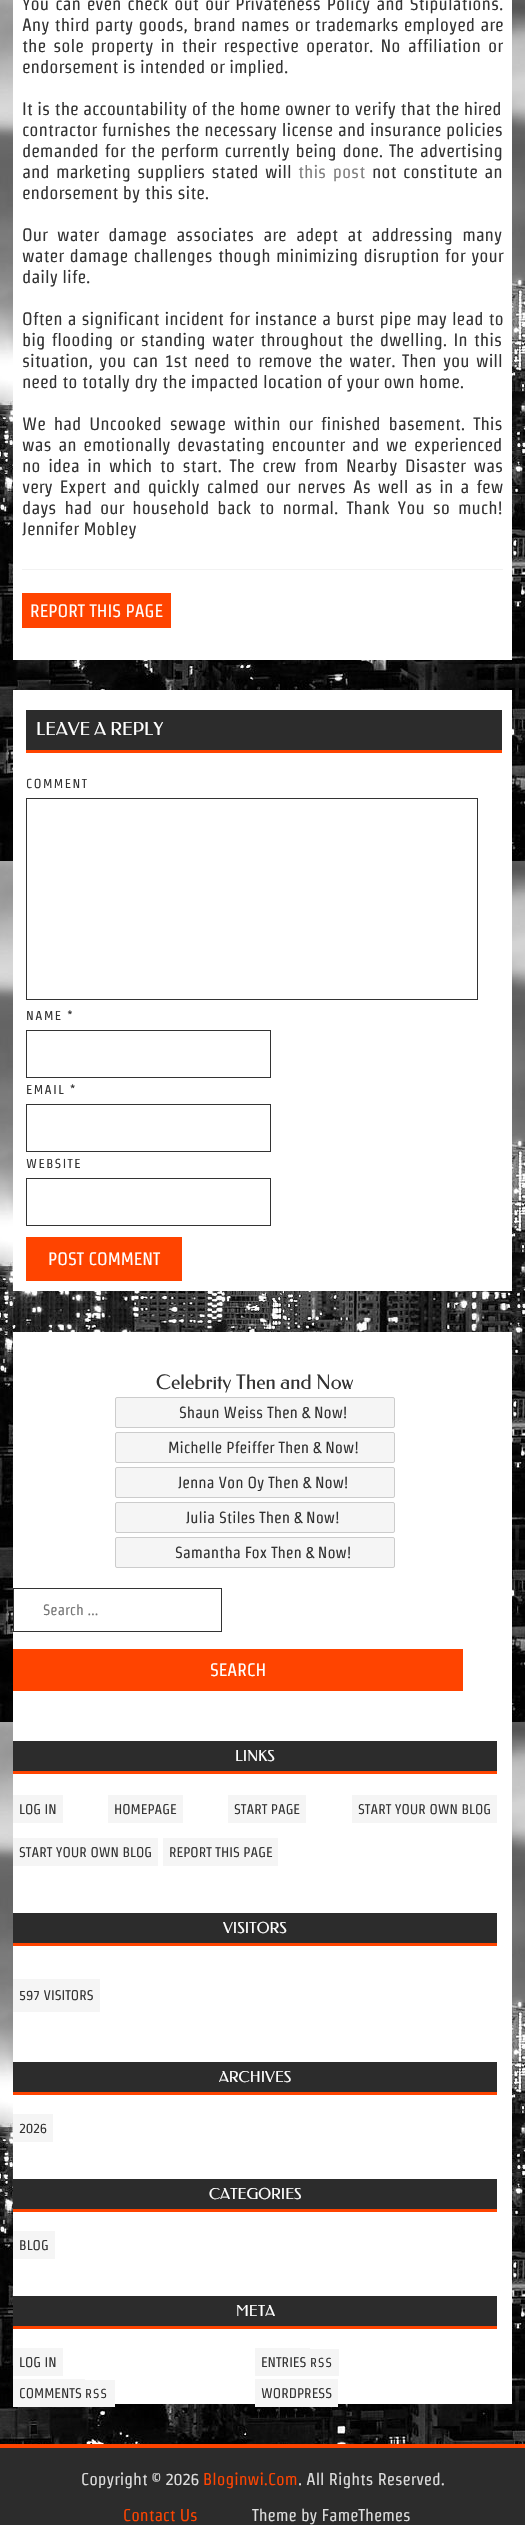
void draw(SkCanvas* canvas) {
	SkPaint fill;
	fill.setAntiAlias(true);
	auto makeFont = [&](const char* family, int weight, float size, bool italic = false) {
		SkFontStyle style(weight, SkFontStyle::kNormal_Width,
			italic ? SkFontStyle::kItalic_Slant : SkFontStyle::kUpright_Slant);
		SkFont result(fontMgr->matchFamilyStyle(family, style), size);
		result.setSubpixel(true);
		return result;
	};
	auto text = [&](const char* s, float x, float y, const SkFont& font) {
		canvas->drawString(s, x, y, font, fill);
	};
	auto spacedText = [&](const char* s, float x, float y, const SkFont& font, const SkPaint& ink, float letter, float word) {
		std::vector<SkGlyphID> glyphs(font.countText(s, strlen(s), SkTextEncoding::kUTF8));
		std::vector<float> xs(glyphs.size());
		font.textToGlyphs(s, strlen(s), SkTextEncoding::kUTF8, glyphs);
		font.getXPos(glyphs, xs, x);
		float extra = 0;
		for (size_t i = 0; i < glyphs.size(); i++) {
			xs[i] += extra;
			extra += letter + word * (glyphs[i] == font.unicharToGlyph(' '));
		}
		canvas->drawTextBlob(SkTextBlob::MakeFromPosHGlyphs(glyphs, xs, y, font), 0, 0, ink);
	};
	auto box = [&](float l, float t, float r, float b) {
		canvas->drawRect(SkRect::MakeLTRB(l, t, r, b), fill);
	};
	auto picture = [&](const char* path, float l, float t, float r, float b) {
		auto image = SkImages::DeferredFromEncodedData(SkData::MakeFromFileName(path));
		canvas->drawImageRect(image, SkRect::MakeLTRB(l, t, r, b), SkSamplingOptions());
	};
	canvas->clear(0xFFFFFFFF);
	picture("image0.png", 0, 0, 525, 2444);
	fill.setColor(0xFFFFFFFF);
	box(13, 0, 512, 660);
	fill.setColor(0xFFF2F2F2);
	box(22, 569, 503, 570);
	fill.setColor(0xFFFF4400);
	box(22, 593, 171, 628);
	fill.setColor(0xFFFFFFFF);
	box(13, 690, 512, 1291);
	fill.setColor(0xFF2C2C2C);
	box(26, 710, 502, 750);
	fill.setColor(0xFFFF4400);
	box(26, 750, 502, 753);
	fill.setStyle(SkPaint::kStroke_Style);
	fill.setStrokeWidth(1);
	fill.setColor(0xFF333333);
	canvas->drawRect(SkRect::MakeLTRB(26.5f, 798.5f, 477.5f, 999.5f), fill);
	canvas->drawRect(SkRect::MakeLTRB(26.5f, 1030.5f, 270.5f, 1077.5f), fill);
	canvas->drawRect(SkRect::MakeLTRB(26.5f, 1104.5f, 270.5f, 1151.5f), fill);
	canvas->drawRect(SkRect::MakeLTRB(26.5f, 1178.5f, 270.5f, 1225.5f), fill);
	fill.setStyle(SkPaint::kFill_Style);
	fill.setColor(0xFFFF4400);
	box(26, 1237, 182, 1281);
	fill.setColor(0xFFFFFFFF);
	box(13, 1332, 512, 2404);
	fill.setColor(0xFFF5F5F5);
	canvas->drawRoundRect(SkRect::MakeLTRB(115.5f, 1397.5f, 394.5f, 1427.5f), 1.5f, 1.5f, fill);
	fill.setStyle(SkPaint::kStroke_Style);
	fill.setColor(0xFFCCCCCC);
	canvas->drawRoundRect(SkRect::MakeLTRB(115.5f, 1397.5f, 394.5f, 1427.5f), 1.5f, 1.5f, fill);
	fill.setStyle(SkPaint::kFill_Style);
	fill.setColor(0xFFF5F5F5);
	canvas->drawRoundRect(SkRect::MakeLTRB(115.5f, 1432.5f, 394.5f, 1462.5f), 1.5f, 1.5f, fill);
	fill.setStyle(SkPaint::kStroke_Style);
	fill.setColor(0xFFCCCCCC);
	canvas->drawRoundRect(SkRect::MakeLTRB(115.5f, 1432.5f, 394.5f, 1462.5f), 1.5f, 1.5f, fill);
	fill.setStyle(SkPaint::kFill_Style);
	fill.setColor(0xFFF5F5F5);
	canvas->drawRoundRect(SkRect::MakeLTRB(115.5f, 1467.5f, 394.5f, 1497.5f), 1.5f, 1.5f, fill);
	fill.setStyle(SkPaint::kStroke_Style);
	fill.setColor(0xFFCCCCCC);
	canvas->drawRoundRect(SkRect::MakeLTRB(115.5f, 1467.5f, 394.5f, 1497.5f), 1.5f, 1.5f, fill);
	fill.setStyle(SkPaint::kFill_Style);
	fill.setColor(0xFFF5F5F5);
	canvas->drawRoundRect(SkRect::MakeLTRB(115.5f, 1502.5f, 394.5f, 1532.5f), 1.5f, 1.5f, fill);
	fill.setStyle(SkPaint::kStroke_Style);
	fill.setColor(0xFFCCCCCC);
	canvas->drawRoundRect(SkRect::MakeLTRB(115.5f, 1502.5f, 394.5f, 1532.5f), 1.5f, 1.5f, fill);
	fill.setStyle(SkPaint::kFill_Style);
	fill.setColor(0xFFF5F5F5);
	canvas->drawRoundRect(SkRect::MakeLTRB(115.5f, 1537.5f, 394.5f, 1567.5f), 1.5f, 1.5f, fill);
	fill.setStyle(SkPaint::kStroke_Style);
	fill.setColor(0xFFCCCCCC);
	canvas->drawRoundRect(SkRect::MakeLTRB(115.5f, 1537.5f, 394.5f, 1567.5f), 1.5f, 1.5f, fill);
	fill.setColor(0xFF333333);
	canvas->drawRect(SkRect::MakeLTRB(13.5f, 1588.5f, 221.5f, 1631.5f), fill);
	fill.setStyle(SkPaint::kFill_Style);
	fill.setColor(0xFFFF4400);
	box(13, 1649, 463, 1691);
	fill.setColor(0xFF2C2C2C);
	box(13, 1741, 497, 1771);
	fill.setColor(0xFFFF4400);
	box(13, 1771, 497, 1774);
	fill.setColor(0xFFF5F5F5);
	box(13, 1795, 63, 1823);
	box(108, 1795, 183, 1823);
	box(228, 1795, 306, 1823);
	box(352, 1795, 497, 1823);
	box(13, 1838, 158, 1866);
	box(163, 1838, 278, 1866);
	fill.setColor(0xFF2C2C2C);
	box(13, 1913, 497, 1943);
	fill.setColor(0xFFFF4400);
	box(13, 1943, 497, 1946);
	fill.setColor(0xFFF5F5F5);
	box(13, 1979, 100, 2012);
	fill.setColor(0xFF2C2C2C);
	box(13, 2062, 497, 2092);
	fill.setColor(0xFFFF4400);
	box(13, 2092, 497, 2095);
	fill.setColor(0xFFF5F5F5);
	box(13, 2114, 53, 2142);
	fill.setColor(0xFF2C2C2C);
	box(13, 2179, 497, 2209);
	fill.setColor(0xFFFF4400);
	box(13, 2209, 497, 2212);
	fill.setColor(0xFFF5F5F5);
	box(13, 2231, 55, 2259);
	fill.setColor(0xFF2C2C2C);
	box(13, 2296, 497, 2326);
	fill.setColor(0xFFFF4400);
	box(13, 2326, 497, 2329);
	fill.setColor(0xFFF5F5F5);
	box(13, 2348, 63, 2376);
	box(255, 2348, 310, 2376);
	box(310, 2349, 339, 2376);
	box(13, 2379, 85, 2407);
	box(85, 2380, 115, 2407);
	box(255, 2379, 338, 2407);
	fill.setColor(0xFF2C2C2C);
	box(0, 2448, 525, 2525);
	fill.setColor(0xFFFF4400);
	box(0, 2444, 525, 2448);
	auto font1 = makeFont("Strait", 400, 18);
	fill.setColor(0xFF333333);
	spacedText("You can even check out our Privateness Policy and Stipulations.", 22, 10, font1, fill, 0, 1.5f);
	spacedText("Any third party goods, brand names or trademarks employed are", 22, 31, font1, fill, 0, 0.75f);
	spacedText("the sole property in their respective operator. No affiliation or", 22, 52, font1, fill, 0, 2.75f);
	text("endorsement is intended or implied.", 22, 73, font1);
	text("It is the accountability of the home owner to verify that the hired", 22, 115, font1);
	spacedText("contractor furnishes the necessary license and insurance policies", 22, 136, font1, fill, 0, 0.25f);
	spacedText("demanded for the perform currently being done. The advertising", 22, 157, font1, fill, 0, 1.25f);
	spacedText("and marketing suppliers stated will", 22, 178, font1, fill, 0, 2);
	fill.setColor(0xFF807F7F);
	spacedText("this post", 298, 178, font1, fill, 0, 2);
	fill.setColor(0xFF333333);
	spacedText("not constitute an", 372, 178, font1, fill, 0, 2);
	text("endorsement by this site.", 22, 199, font1);
	spacedText("Our water damage associates are adept at addressing many", 22, 241, font1, fill, 0, 4.75f);
	spacedText("water damage challenges though minimizing disruption for your", 22, 262, font1, fill, 0, 1);
	text("daily life.", 22, 283, font1);
	spacedText("Often a significant incident for instance a burst pipe may lead to", 22, 325, font1, fill, 0, 0.5f);
	spacedText("big flooding or standing water throughout the dwelling. In this", 22, 346, font1, fill, 0, 1.75f);
	spacedText("situation, you can 1st need to remove the water. Then you will", 22, 367, font1, fill, 0, 2);
	text("need to totally dry the impacted location of your own home.", 22, 388, font1);
	spacedText("We had Uncooked sewage within our finished basement. This", 22, 430, font1, fill, 0, 3.5f);
	spacedText("was an emotionally devastating encounter and we experienced", 22, 451, font1, fill, 0, 2.25f);
	spacedText("no idea in which to start. The crew from Nearby Disaster was", 22, 472, font1, fill, 0, 3.1f);
	spacedText("very Expert and quickly calmed our nerves As well as in a few", 22, 493, font1, fill, 0, 2.5f);
	spacedText("days had our household back to normal. Thank You so much!", 22, 514, font1, fill, 0, 3.5f);
	text("Jennifer Mobley", 22, 535, font1);
	fill.setColor(0xFFFFFFFF);
	text("REPORT THIS PAGE", 30, 617, font1);
	auto font2 = makeFont("Federo", 400, 18);
	text("LEAVE A REPLY", 36, 735, font2);
	auto font3 = makeFont("Strait", 400, 13);
	fill.setColor(0xFF333333);
	spacedText("COMMENT", 26, 788, font3, fill, 1.5f, 0);
	spacedText("NAME *", 26, 1020, font3, fill, 1.5f, 0);
	spacedText("EMAIL *", 26, 1094, font3, fill, 1.5f, 0);
	spacedText("WEBSITE", 26, 1168, font3, fill, 1.5f, 0);
	fill.setColor(0xFFFFFFFF);
	text("POST COMMENT", 48, 1265, font1);
	auto font4 = makeFont("Federo", 400, 20);
	fill.setColor(0xFF333333);
	text("Celebrity Then and Now", 156, 1389, font4);
	auto font5 = makeFont("Strait", 400, 16);
	text("Shaun Weiss Then & Now!", 179, 1418, font5);
	text("Michelle Pfeiffer Then & Now!", 168, 1453, font5);
	text("Jenna Von Oy Then & Now!", 178, 1488, font5);
	text("Julia Stiles Then & Now!", 186, 1523, font5);
	text("Samantha Fox Then & Now!", 175, 1558, font5);
	auto font6 = makeFont("Strait", 400, 15);
	fill.setColor(0xFF757575);
	text("Search …", 43, 1615, font6);
	fill.setColor(0xFFFFFFFF);
	text("SEARCH", 210, 1676, font1);
	auto font7 = makeFont("Federo", 400, 15);
	text("LINKS", 235, 1761, font7);
	auto font8 = makeFont("Strait", 400, 14);
	fill.setColor(0xFF333333);
	text("LOG IN", 19, 1814, font8);
	text("HOMEPAGE", 114, 1814, font8);
	text("START PAGE", 234, 1814, font8);
	text("START YOUR OWN BLOG", 358, 1814, font8);
	text("START YOUR OWN BLOG", 19, 1857, font8);
	text("REPORT THIS PAGE", 169, 1857, font8);
	fill.setColor(0xFFFFFFFF);
	text("VISITORS", 223, 1933, font7);
	fill.setColor(0xFF333333);
	text("597 VISITORS", 19, 2000, font8);
	fill.setColor(0xFFFFFFFF);
	text("ARCHIVES", 219, 2082, font7);
	fill.setColor(0xFF333333);
	text("2026", 19, 2133, font8);
	fill.setColor(0xFFFFFFFF);
	text("CATEGORIES", 209, 2199, font7);
	fill.setColor(0xFF333333);
	text("BLOG", 19, 2250, font8);
	fill.setColor(0xFFFFFFFF);
	text("META", 236, 2316, font7);
	fill.setColor(0xFF333333);
	text("LOG IN", 19, 2367, font8);
	text("ENTRIES", 261, 2367, font8);
	spacedText("RSS", 310, 2367, font3, fill, 1, 0);
	text("COMMENTS", 19, 2398, font8);
	spacedText("RSS", 85, 2398, font3, fill, 1, 0);
	text("WORDPRESS", 261, 2398, font8);
	auto font9 = makeFont("Strait", 400, 17);
	fill.setColor(0xFFDDDDDD);
	text("Copyright © 2026", 81, 2485, font9);
	fill.setColor(0xFFFF4400);
	text("Bloginwi.Com", 203, 2485, font9);
	fill.setColor(0xFFDDDDDD);
	text(". All Rights Reserved.", 298, 2485, font9);
	fill.setColor(0xFFFF4400);
	text("Contact Us", 123, 2521, font9);
	fill.setColor(0xFFDDDDDD);
	text("Theme by FameThemes", 252, 2521, font9);
}
